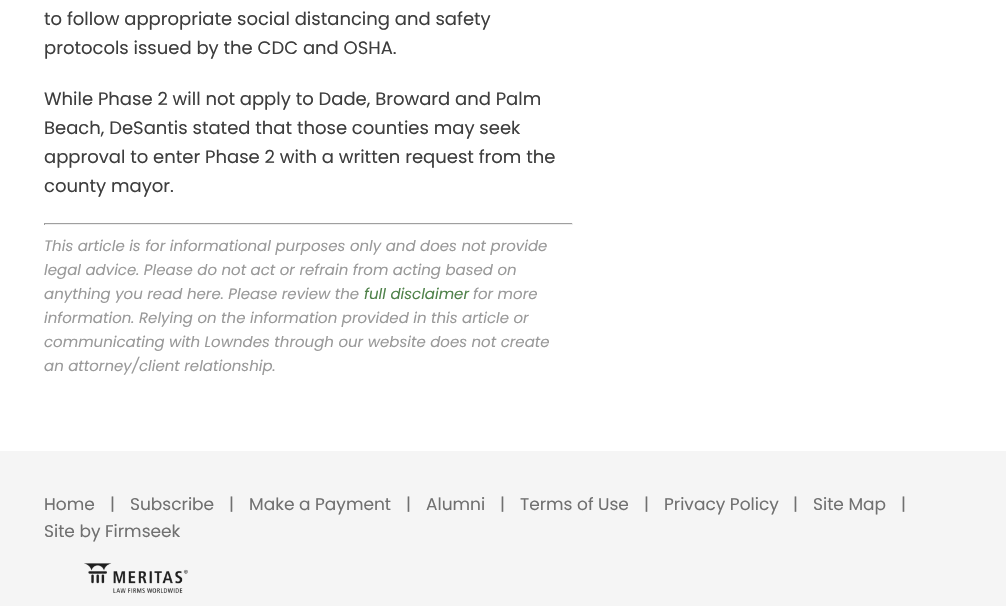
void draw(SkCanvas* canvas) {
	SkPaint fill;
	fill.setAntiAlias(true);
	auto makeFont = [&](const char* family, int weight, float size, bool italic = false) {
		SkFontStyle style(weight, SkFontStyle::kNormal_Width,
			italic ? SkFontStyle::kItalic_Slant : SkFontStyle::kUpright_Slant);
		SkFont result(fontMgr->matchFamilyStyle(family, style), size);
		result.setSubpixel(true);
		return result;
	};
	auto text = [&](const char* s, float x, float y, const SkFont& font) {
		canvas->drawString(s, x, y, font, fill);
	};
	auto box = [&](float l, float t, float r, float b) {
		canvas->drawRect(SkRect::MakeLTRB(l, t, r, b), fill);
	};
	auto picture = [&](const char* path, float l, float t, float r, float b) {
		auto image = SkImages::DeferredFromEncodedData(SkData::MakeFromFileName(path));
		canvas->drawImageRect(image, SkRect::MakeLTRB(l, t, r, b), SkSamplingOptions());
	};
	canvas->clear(0xFFFFFFFF);
	fill.setColor(0xFF9F9F9F);
	box(44, 223, 573, 224);
	fill.setColor(0xFFEEEEEE);
	box(572, 223, 573, 225);
	box(44, 224, 573, 225);
	fill.setColor(0xFF9F9F9F);
	box(44, 223, 45, 225);
	fill.setColor(0xFFF5F5F5);
	box(0, 451, 1006, 606);
	picture("image0.png", 84, 563, 188, 593);
	auto font1 = makeFont("Poppins", 400, 18);
	fill.setColor(0xFF3E3E3E);
	text("to follow appropriate social distancing and safety", 44, 25, font1);
	text("protocols issued by the CDC and OSHA.", 44, 54, font1);
	text("While Phase 2 will not apply to Dade, Broward and Palm", 44, 105, font1);
	text("Beach, DeSantis stated that those counties may seek", 44, 134, font1);
	text("approval to enter Phase 2 with a written request from the", 44, 163, font1);
	text("county mayor.", 44, 192, font1);
	auto font2 = makeFont("Poppins", 400, 15, true);
	fill.setColor(0xFF999999);
	text("This article is for informational purposes only and does not provide", 44, 251, font2);
	text("legal advice. Please do not act or refrain from acting based on", 44, 275, font2);
	text("anything you read here. Please review the", 44, 299, font2);
	fill.setColor(0xFF4F824A);
	text("full disclaimer", 364, 299, font2);
	fill.setColor(0xFF999999);
	text("for more", 473, 299, font2);
	text("information. Relying on the information provided in this article or", 44, 323, font2);
	text("communicating with Lowndes through our website does not create", 44, 347, font2);
	text("an attorney/client relationship.", 44, 371, font2);
	auto font3 = makeFont("Poppins", 400, 17);
	fill.setColor(0xFF707070);
	text("Home", 44, 510, font3);
	text("|", 110, 510, font3);
	text("Subscribe", 130, 510, font3);
	text("|", 229, 510, font3);
	text("Make a Payment", 249, 510, font3);
	text("|", 406, 510, font3);
	text("Alumni", 426, 510, font3);
	text("|", 500, 510, font3);
	text("Terms of Use", 520, 510, font3);
	text("|", 644, 510, font3);
	text("Privacy Policy", 664, 510, font3);
	text("|", 793, 510, font3);
	text("Site Map", 813, 510, font3);
	text("|", 901, 510, font3);
	text("Site by Firmseek", 44, 537, font3);
}
